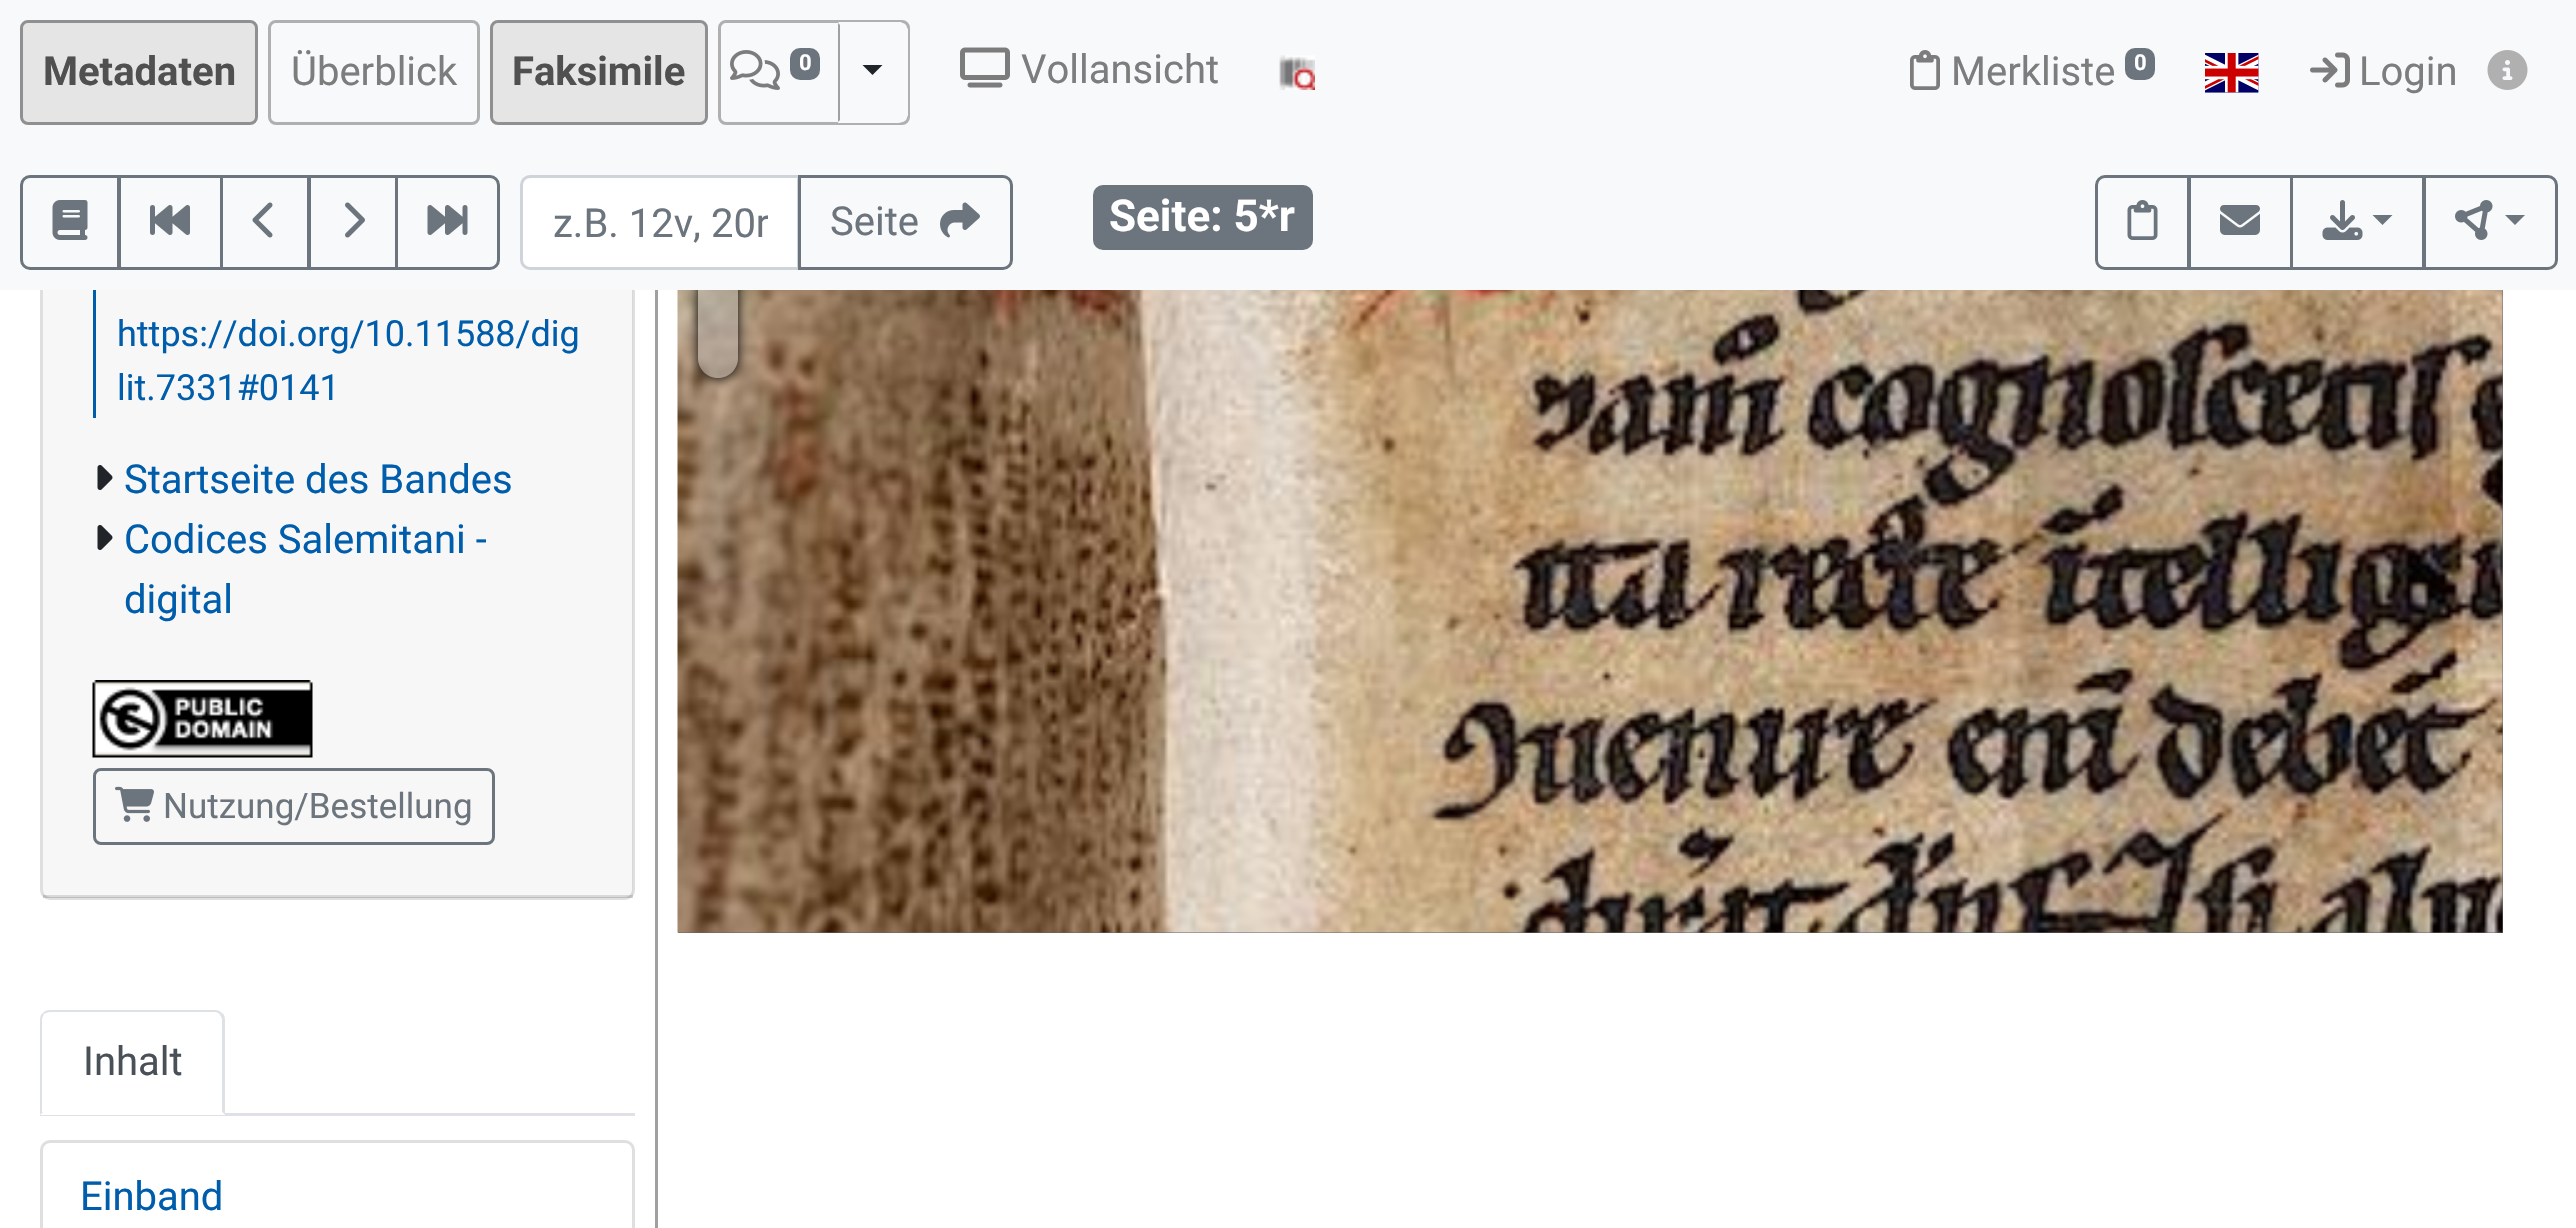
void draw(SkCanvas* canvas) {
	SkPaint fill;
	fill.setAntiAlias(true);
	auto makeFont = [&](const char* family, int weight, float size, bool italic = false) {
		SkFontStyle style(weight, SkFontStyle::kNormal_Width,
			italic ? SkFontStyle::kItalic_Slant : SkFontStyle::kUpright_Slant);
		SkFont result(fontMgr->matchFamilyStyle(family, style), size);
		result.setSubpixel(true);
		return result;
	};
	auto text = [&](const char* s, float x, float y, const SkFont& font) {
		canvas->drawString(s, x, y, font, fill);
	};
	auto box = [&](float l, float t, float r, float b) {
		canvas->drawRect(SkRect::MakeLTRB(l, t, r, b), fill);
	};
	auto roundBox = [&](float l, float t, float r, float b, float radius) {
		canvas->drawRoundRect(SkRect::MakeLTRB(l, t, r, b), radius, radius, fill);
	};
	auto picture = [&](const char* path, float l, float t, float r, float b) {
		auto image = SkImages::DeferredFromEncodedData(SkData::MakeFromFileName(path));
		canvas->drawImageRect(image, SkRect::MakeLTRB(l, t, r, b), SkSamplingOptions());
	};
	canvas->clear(0xFFFFFFFF);
	fill.setStyle(SkPaint::kStroke_Style);
	fill.setStrokeWidth(3);
	fill.setColor(0xFFDFDFDF);
	canvas->drawRoundRect(SkRect::MakeLTRB(41.5f, -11.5f, 633.5f, 898.5f), 8.5f, 8.5f, fill);
	fill.setStyle(SkPaint::kFill_Style);
	fill.setColor(0xFF666666);
	box(678, 290, 2503, 933);
	picture("image20.png", 677, 290, 2503, 933);
	canvas->save();
	canvas->clipPath(SkPathBuilder(SkPathFillType::kEvenOdd).moveTo(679, 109).lineTo(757, 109).lineTo(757, 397).lineTo(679, 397).close().moveTo(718, 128).cubicTo(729, 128, 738, 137, 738, 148).lineTo(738, 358).cubicTo(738, 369, 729, 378, 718, 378).cubicTo(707, 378, 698, 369, 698, 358).lineTo(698, 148).cubicTo(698, 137, 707, 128, 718, 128).close().detach(), true);
	fill.setColor(0xFF000000);
	fill.setMaskFilter(SkMaskFilter::MakeBlur(kNormal_SkBlurStyle, 6));
	canvas->drawRoundRect(SkRect::MakeLTRB(698, 128, 738, 378), 20, 20, fill);
	fill.setMaskFilter(nullptr);
	canvas->restore();
	fill.setColor(0x66B4B4B4);
	roundBox(698, 128, 738, 378, 20);
	fill.setColor(0xFFF8F9FA);
	box(0, 0, 2576, 290);
	fill.setColor(0xFFE5E5E5);
	canvas->drawRoundRect(SkRect::MakeLTRB(21.5f, 21.5f, 256.5f, 123.5f), 6.5f, 6.5f, fill);
	fill.setStyle(SkPaint::kStroke_Style);
	fill.setColor(0xFF909090);
	canvas->drawRoundRect(SkRect::MakeLTRB(21.5f, 21.5f, 256.5f, 123.5f), 6.5f, 6.5f, fill);
	fill.setColor(0xFFB0B0B0);
	canvas->drawRoundRect(SkRect::MakeLTRB(269.5f, 21.5f, 478.5f, 123.5f), 6.5f, 6.5f, fill);
	fill.setStyle(SkPaint::kFill_Style);
	fill.setColor(0xFFE5E5E5);
	canvas->drawRoundRect(SkRect::MakeLTRB(491.5f, 21.5f, 706.5f, 123.5f), 6.5f, 6.5f, fill);
	fill.setStyle(SkPaint::kStroke_Style);
	fill.setColor(0xFF909090);
	canvas->drawRoundRect(SkRect::MakeLTRB(491.5f, 21.5f, 706.5f, 123.5f), 6.5f, 6.5f, fill);
	fill.setColor(0xFFB0B0B0);
	canvas->drawRoundRect(SkRect::MakeLTRB(719.5f, 21.5f, 908.5f, 123.5f), 6.5f, 6.5f, fill);
	picture("image0.png", 730, 50, 780, 90);
	fill.setStyle(SkPaint::kFill_Style);
	fill.setColor(0xFF6C757D);
	roundBox(790, 48, 820, 80, 10);
	fill.setColor(0xFFF8F9FA);
	canvas->drawPath(SkPathBuilder().moveTo(838, 23).lineTo(898, 23).cubicTo(903.5f, 23, 908, 27.5f, 908, 33).lineTo(908, 113).cubicTo(908, 118.5f, 903.5f, 123, 898, 123).lineTo(838, 123).close().detach(), fill);
	canvas->drawPath(SkPathBuilder().moveTo(840, 25).lineTo(838, 22).lineTo(901, 22).lineTo(905, 25).lineTo(903, 27).cubicTo(902, 26, 900, 25, 898, 25).close().detach(), fill);
	canvas->drawPath(SkPathBuilder().moveTo(908, 115).cubicTo(907, 117, 906, 118, 905, 120).lineTo(903, 118).cubicTo(904, 117, 905, 115, 905, 112).lineTo(905, 32).cubicTo(905, 30, 904, 28, 903, 27).lineTo(905, 25).lineTo(908, 29).close().detach(), fill);
	fill.setColor(0xFFA0A0A0);
	canvas->drawPath(SkPathBuilder().moveTo(840, 25).lineTo(838, 23).lineTo(838, 122).lineTo(840, 120).close().detach(), fill);
	fill.setColor(0xFF212529);
	canvas->drawPath(SkPathBuilder().moveTo(862.5f, 65).lineTo(882.5f, 65).lineTo(872.5f, 75).close().detach(), fill);
	picture("image1.png", 960, 47, 1010, 88);
	picture("image2.png", 1279, 55, 1315, 90);
	picture("image3.png", 1910, 50, 1940, 90);
	fill.setColor(0xFF6C757D);
	roundBox(2125, 48, 2155, 80, 10);
	picture("image4.png", 2205, 53, 2259, 93);
	picture("image5.png", 2310, 52, 2350, 88);
	picture("image6.png", 2487, 50, 2528, 90);
	fill.setStyle(SkPaint::kStroke_Style);
	canvas->drawPath(SkPathBuilder().moveTo(30, 176.5f).lineTo(118.5f, 176.5f).lineTo(118.5f, 268.5f).lineTo(30, 268.5f).cubicTo(25.5f, 268.5f, 21.5f, 264.5f, 21.5f, 260).lineTo(21.5f, 185).cubicTo(21.5f, 180.5f, 25.5f, 176.5f, 30, 176.5f).close().detach(), fill);
	picture("image7.png", 52, 200, 88, 240);
	canvas->drawRect(SkRect::MakeLTRB(119.5f, 176.5f, 221.5f, 268.5f), fill);
	picture("image8.png", 150, 205, 190, 235);
	canvas->drawRect(SkRect::MakeLTRB(221.5f, 176.5f, 308.5f, 268.5f), fill);
	picture("image9.png", 252, 202, 273, 238);
	canvas->drawRect(SkRect::MakeLTRB(309.5f, 176.5f, 396.5f, 268.5f), fill);
	picture("image10.png", 345, 202, 365, 238);
	canvas->drawPath(SkPathBuilder().moveTo(396.5f, 176.5f).lineTo(490, 176.5f).cubicTo(494.5f, 176.5f, 498.5f, 180.5f, 498.5f, 185).lineTo(498.5f, 260).cubicTo(498.5f, 264.5f, 494.5f, 268.5f, 490, 268.5f).lineTo(396.5f, 268.5f).close().detach(), fill);
	picture("image11.png", 427, 205, 468, 235);
	fill.setStyle(SkPaint::kFill_Style);
	fill.setColor(0xFFFFFFFF);
	canvas->drawPath(SkPathBuilder().moveTo(530, 176.5f).lineTo(798.5f, 176.5f).lineTo(798.5f, 268.5f).lineTo(530, 268.5f).cubicTo(525.5f, 268.5f, 521.5f, 264.5f, 521.5f, 260).lineTo(521.5f, 185).cubicTo(521.5f, 180.5f, 525.5f, 176.5f, 530, 176.5f).close().detach(), fill);
	fill.setStyle(SkPaint::kStroke_Style);
	fill.setColor(0xFFCED4DA);
	canvas->drawPath(SkPathBuilder().moveTo(530, 176.5f).lineTo(798.5f, 176.5f).lineTo(798.5f, 268.5f).lineTo(530, 268.5f).cubicTo(525.5f, 268.5f, 521.5f, 264.5f, 521.5f, 260).lineTo(521.5f, 185).cubicTo(521.5f, 180.5f, 525.5f, 176.5f, 530, 176.5f).close().detach(), fill);
	fill.setColor(0xFF6C757D);
	canvas->drawPath(SkPathBuilder().moveTo(799.5f, 176.5f).lineTo(1003, 176.5f).cubicTo(1007.5f, 176.5f, 1011.5f, 180.5f, 1011.5f, 185).lineTo(1011.5f, 260).cubicTo(1011.5f, 264.5f, 1007.5f, 268.5f, 1003, 268.5f).lineTo(799.5f, 268.5f).close().detach(), fill);
	picture("image12.png", 940, 202, 980, 238);
	fill.setStyle(SkPaint::kFill_Style);
	roundBox(1093, 185, 1313, 250, 10);
	fill.setStyle(SkPaint::kStroke_Style);
	canvas->drawPath(SkPathBuilder().moveTo(2105, 176.5f).lineTo(2188.5f, 176.5f).lineTo(2188.5f, 268.5f).lineTo(2105, 268.5f).cubicTo(2100.5f, 268.5f, 2096.5f, 264.5f, 2096.5f, 260).lineTo(2096.5f, 185).cubicTo(2096.5f, 180.5f, 2100.5f, 176.5f, 2105, 176.5f).close().detach(), fill);
	picture("image13.png", 2127, 200, 2158, 240);
	canvas->drawRect(SkRect::MakeLTRB(2189.5f, 176.5f, 2291.5f, 268.5f), fill);
	picture("image14.png", 2220, 205, 2260, 235);
	canvas->drawRect(SkRect::MakeLTRB(2291.5f, 176.5f, 2423.5f, 268.5f), fill);
	picture("image15.png", 2322, 200, 2363, 240);
	fill.setStyle(SkPaint::kFill_Style);
	canvas->drawPath(SkPathBuilder().moveTo(2372.5f, 215).lineTo(2392.5f, 215).lineTo(2382.5f, 225).close().detach(), fill);
	fill.setStyle(SkPaint::kStroke_Style);
	canvas->drawPath(SkPathBuilder().moveTo(2424.5f, 176.5f).lineTo(2548, 176.5f).cubicTo(2552.5f, 176.5f, 2556.5f, 180.5f, 2556.5f, 185).lineTo(2556.5f, 260).cubicTo(2556.5f, 264.5f, 2552.5f, 268.5f, 2548, 268.5f).lineTo(2424.5f, 268.5f).close().detach(), fill);
	picture("image16.png", 2455, 200, 2493, 240);
	fill.setStyle(SkPaint::kFill_Style);
	canvas->drawPath(SkPathBuilder().moveTo(2505, 215).lineTo(2525, 215).lineTo(2515, 225).close().detach(), fill);
	fill.setColor(0x08000000);
	box(43, 290, 633, 898);
	fill.setColor(0x1F000000);
	box(43, 895, 633, 898);
	fill.setColor(0xFF005DAB);
	box(93, 290, 96, 418);
	picture("image17.png", 97, 465, 113, 490);
	picture("image17.png", 97, 525, 113, 550);
	picture("image18.png", 92, 680, 313, 758);
	fill.setStyle(SkPaint::kStroke_Style);
	fill.setColor(0xFF6C757D);
	canvas->drawRoundRect(SkRect::MakeLTRB(94.5f, 769.5f, 493.5f, 843.5f), 6.5f, 6.5f, fill);
	picture("image19.png", 115, 786, 154, 822);
	fill.setStyle(SkPaint::kFill_Style);
	fill.setColor(0xFFDEE2E6);
	box(40, 1113, 635, 1116);
	fill.setColor(0xFFFFFFFF);
	canvas->drawPath(SkPathBuilder().moveTo(50, 1010).lineTo(215, 1010).cubicTo(220.5f, 1010, 225, 1014.5f, 225, 1020).lineTo(225, 1115).lineTo(40, 1115).lineTo(40, 1020).cubicTo(40, 1014.5f, 44.5f, 1010, 50, 1010).close().detach(), fill);
	fill.setColor(0xFFDEE2E6);
	canvas->drawPath(SkPathBuilder().moveTo(50, 1010).cubicTo(47, 1010, 44, 1011, 43, 1013).lineTo(44, 1014).cubicTo(46, 1013, 48, 1012, 50, 1012).lineTo(215, 1012).cubicTo(217, 1012, 219, 1013, 220, 1015).lineTo(222, 1013).cubicTo(220, 1011, 218, 1010, 215, 1010).close().detach(), fill);
	canvas->drawPath(SkPathBuilder().moveTo(225, 1115).lineTo(225, 1020).cubicTo(225, 1017, 224, 1014, 222, 1013).lineTo(220, 1015).cubicTo(221, 1016, 222, 1018, 222, 1020).lineTo(222, 1112).close().detach(), fill);
	fill.setColor(0xFFFFFFFF);
	canvas->drawPath(SkPathBuilder().moveTo(225, 1115).lineTo(222, 1112).lineTo(43, 1112).lineTo(40, 1115).close().detach(), fill);
	fill.setColor(0xFFDEE2E6);
	canvas->drawPath(SkPathBuilder().moveTo(40, 1115).lineTo(43, 1112).lineTo(42, 1112).lineTo(42, 1020).cubicTo(42, 1018, 43, 1016, 44, 1014).lineTo(43, 1013).cubicTo(41, 1014, 40, 1017, 40, 1020).close().detach(), fill);
	fill.setStyle(SkPaint::kStroke_Style);
	fill.setColor(0xFFDFDFDF);
	canvas->drawPath(SkPathBuilder().moveTo(50, 1141.5f).lineTo(625, 1141.5f).cubicTo(629.5f, 1141.5f, 633.5f, 1145.5f, 633.5f, 1150).lineTo(633.5f, 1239.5f).lineTo(41.5f, 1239.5f).lineTo(41.5f, 1150).cubicTo(41.5f, 1145.5f, 45.5f, 1141.5f, 50, 1141.5f).close().detach(), fill);
	fill.setStyle(SkPaint::kFill_Style);
	fill.setColor(0xFFA0A0A0);
	box(655, 290, 658, 1228);
	auto font1 = makeFont("Roboto", 700, 40);
	fill.setColor(0xFF505050);
	text("Metadaten", 43, 85, font1);
	auto font2 = makeFont("Roboto", 400, 40);
	fill.setColor(0xFF7C7D7D);
	text("Überblick", 291, 85, font2);
	fill.setColor(0xFF505050);
	text("Faksimile", 512, 85, font1);
	auto font3 = makeFont("Roboto", 700, 22);
	fill.setColor(0xFFFFFFFF);
	text("0", 799, 70, font3);
	fill.setColor(0xFF7C7D7D);
	text("Vollansicht", 1021, 83, font2);
	text("Merkliste", 1951, 85, font2);
	fill.setColor(0xFFFFFFFF);
	text("0", 2134, 70, font3);
	fill.setColor(0xFF7C7D7D);
	text("Login", 2359, 85, font2);
	canvas->save();
	canvas->clipRect(SkRect::MakeLTRB(553, 200, 768, 248));
	fill.setColor(0xFF6C757D);
	text("z.B. 12v, 20r", 553, 237, font2);
	canvas->restore();
	text("Seite", 830, 235, font2);
	auto font4 = makeFont("Roboto", 700, 44);
	fill.setColor(0xFFFFFFFF);
	text("Seite: 5*r", 1109, 231, font4);
	auto font5 = makeFont("Roboto", 400, 36);
	fill.setColor(0xFF005DAB);
	text("https://doi.org/10.11588/dig", 117, 346, font5);
	text("lit.7331#0141", 117, 400, font5);
	text("Startseite des Bandes", 124, 493, font2);
	text("Codices Salemitani -", 124, 553, font2);
	text("digital", 124, 613, font2);
	auto font6 = makeFont("Roboto", 400, 35);
	fill.setColor(0xFF6C757D);
	text("Nutzung/Bestellung", 163, 818, font6);
	fill.setColor(0xFF495057);
	text("Inhalt", 83, 1075, font2);
	fill.setColor(0xFF005DAB);
	text("Einband", 80, 1210, font2);
}
